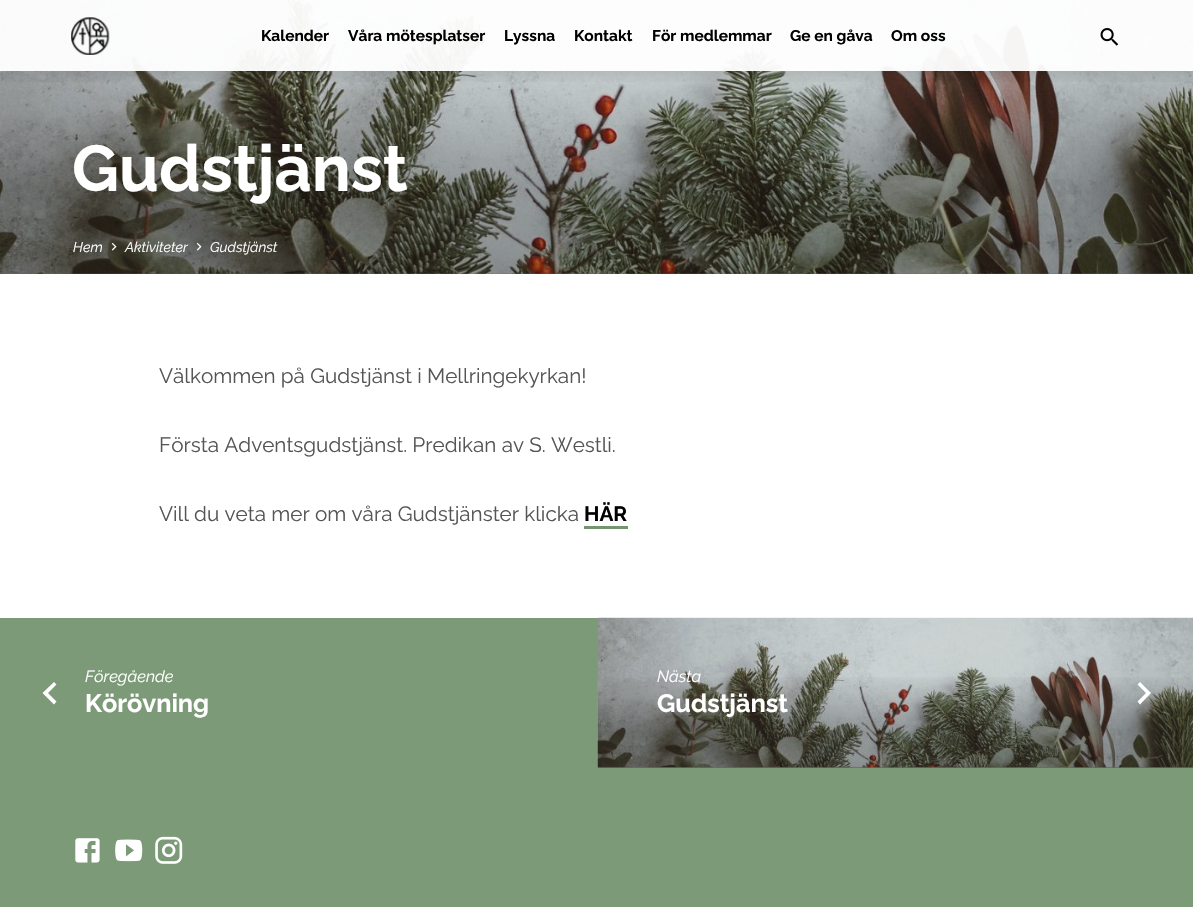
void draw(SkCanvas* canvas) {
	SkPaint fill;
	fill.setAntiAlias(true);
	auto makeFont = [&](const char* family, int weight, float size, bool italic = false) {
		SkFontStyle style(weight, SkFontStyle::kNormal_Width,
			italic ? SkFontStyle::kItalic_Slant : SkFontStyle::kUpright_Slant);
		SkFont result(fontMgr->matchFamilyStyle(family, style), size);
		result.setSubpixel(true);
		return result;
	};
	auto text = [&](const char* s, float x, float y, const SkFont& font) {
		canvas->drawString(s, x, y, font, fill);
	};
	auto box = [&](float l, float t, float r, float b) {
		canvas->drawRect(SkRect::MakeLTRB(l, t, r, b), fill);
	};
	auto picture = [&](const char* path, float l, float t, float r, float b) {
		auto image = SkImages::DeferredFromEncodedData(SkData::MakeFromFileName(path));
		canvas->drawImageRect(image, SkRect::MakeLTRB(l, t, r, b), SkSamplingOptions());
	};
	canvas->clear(0xFFFFFFFF);
	fill.setColor(0xFF7C9A77);
	box(0, 0, 1193, 274);
	picture("image2.png", 0, 0, 1193, 274);
	{
		const SkColor colors[] = {0x00000000, 0x00000000, 0x45000000, 0x45000000};
		const float stops[] = {0, 0.36f, 0.76f, 1};
		const SkPoint ends[] = {{597, -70}, {597, 274}};
		fill.setShader(SkGradientShader::MakeLinear(ends, colors, stops, 4, SkTileMode::kClamp));
		fill.setAlpha(255);
	}
	box(0, 65, 1193, 274);
	canvas->save();
	canvas->clipRect(SkRect::MakeLTRB(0, 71, 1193, 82));
	fill.setShader(nullptr);
	fill.setColor(0x24000000);
	fill.setMaskFilter(SkMaskFilter::MakeBlur(kNormal_SkBlurStyle, 7.5f));
	canvas->drawRect(SkRect::MakeLTRB(0, 3, 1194, 74), fill);
	fill.setMaskFilter(nullptr);
	canvas->restore();
	fill.setColor(0xF2FFFFFF);
	box(0, 0, 1193, 71);
	picture("image0.png", 71, 17, 110, 55);
	picture("image1.png", 1100, 28, 1119, 46);
	picture("image3.png", 111, 242, 117, 251);
	picture("image4.png", 196, 243, 202, 251);
	fill.setColor(0xFF759570);
	box(584, 526, 628, 529);
	fill.setColor(0xFF7C9A77);
	box(0, 618, 1193, 907);
	fill.setColor(0xFFFFFFFF);
	canvas->drawPath(SkPathBuilder().moveTo(56.5f, 701.5f).lineTo(48, 693).lineTo(56.5f, 684.5f).lineTo(54, 682).lineTo(42.5f, 693).lineTo(54, 704.5f).close().detach(), fill);
	picture("image5.png", 597, 617, 1193, 768);
	{
		const SkColor colors[] = {0x00060606, 0x00060606, 0x45060606, 0x45060606};
		const float stops[] = {0, 0.36f, 0.76f, 1};
		const SkPoint ends[] = {{899, 618}, {899, 768}};
		fill.setShader(SkGradientShader::MakeLinear(ends, colors, stops, 4, SkTileMode::kClamp));
		fill.setAlpha(255);
	}
	box(598, 677, 1193, 768);
	fill.setShader(nullptr);
	fill.setColor(0xFFFFFFFF);
	canvas->drawPath(SkPathBuilder().moveTo(1137.5f, 701.5f).lineTo(1146, 693).lineTo(1137.5f, 684.5f).lineTo(1140, 682).lineTo(1151, 693).lineTo(1140, 704.5f).close().detach(), fill);
	picture("image6.png", 75, 838, 100, 863);
	picture("image7.png", 115, 839, 143, 862);
	picture("image8.png", 155, 836, 183, 864);
	auto font1 = makeFont("Raleway", 700, 15.5f);
	fill.setColor(0xFF000000);
	text("Kalender", 261, 41, font1);
	text("Våra mötesplatser", 348, 41, font1);
	text("Lyssna", 504, 41, font1);
	text("Kontakt", 574, 41, font1);
	text("För medlemmar", 652, 41, font1);
	text("Ge en gåva", 790, 41, font1);
	text("Om oss", 891, 41, font1);
	auto font2 = makeFont("Raleway", 700, 64.75f);
	fill.setColor(0xFFFFFFFF);
	text("Gudstjänst", 72, 191, font2);
	auto font3 = makeFont("Raleway", 400, 14, true);
	text("Hem", 73, 252, font3);
	text("Aktiviteter", 125, 252, font3);
	text("Gudstjänst", 210, 252, font3);
	auto font4 = makeFont("Raleway", 400, 20.7f);
	fill.setColor(0xFF555555);
	text("Välkommen på Gudstjänst i Mellringekyrkan!", 159, 383, font4);
	text("Första Adventsgudstjänst. Predikan av S. Westli.", 159, 452, font4);
	text("Vill du veta mer om våra Gudstjänster klicka", 159, 521, font4);
	auto font5 = makeFont("Raleway", 700, 20.7f);
	fill.setColor(0xFF000000);
	text("HÄR", 584, 521, font5);
	auto font6 = makeFont("Raleway", 400, 16.25f, true);
	fill.setColor(0xFFFFFFFF);
	text("Föregående", 85, 682, font6);
	auto font7 = makeFont("Raleway", 700, 25.25f);
	text("Körövning", 85, 712, font7);
	text("Nästa", 657, 682, font6);
	text("Gudstjänst", 657, 712, font7);
}
